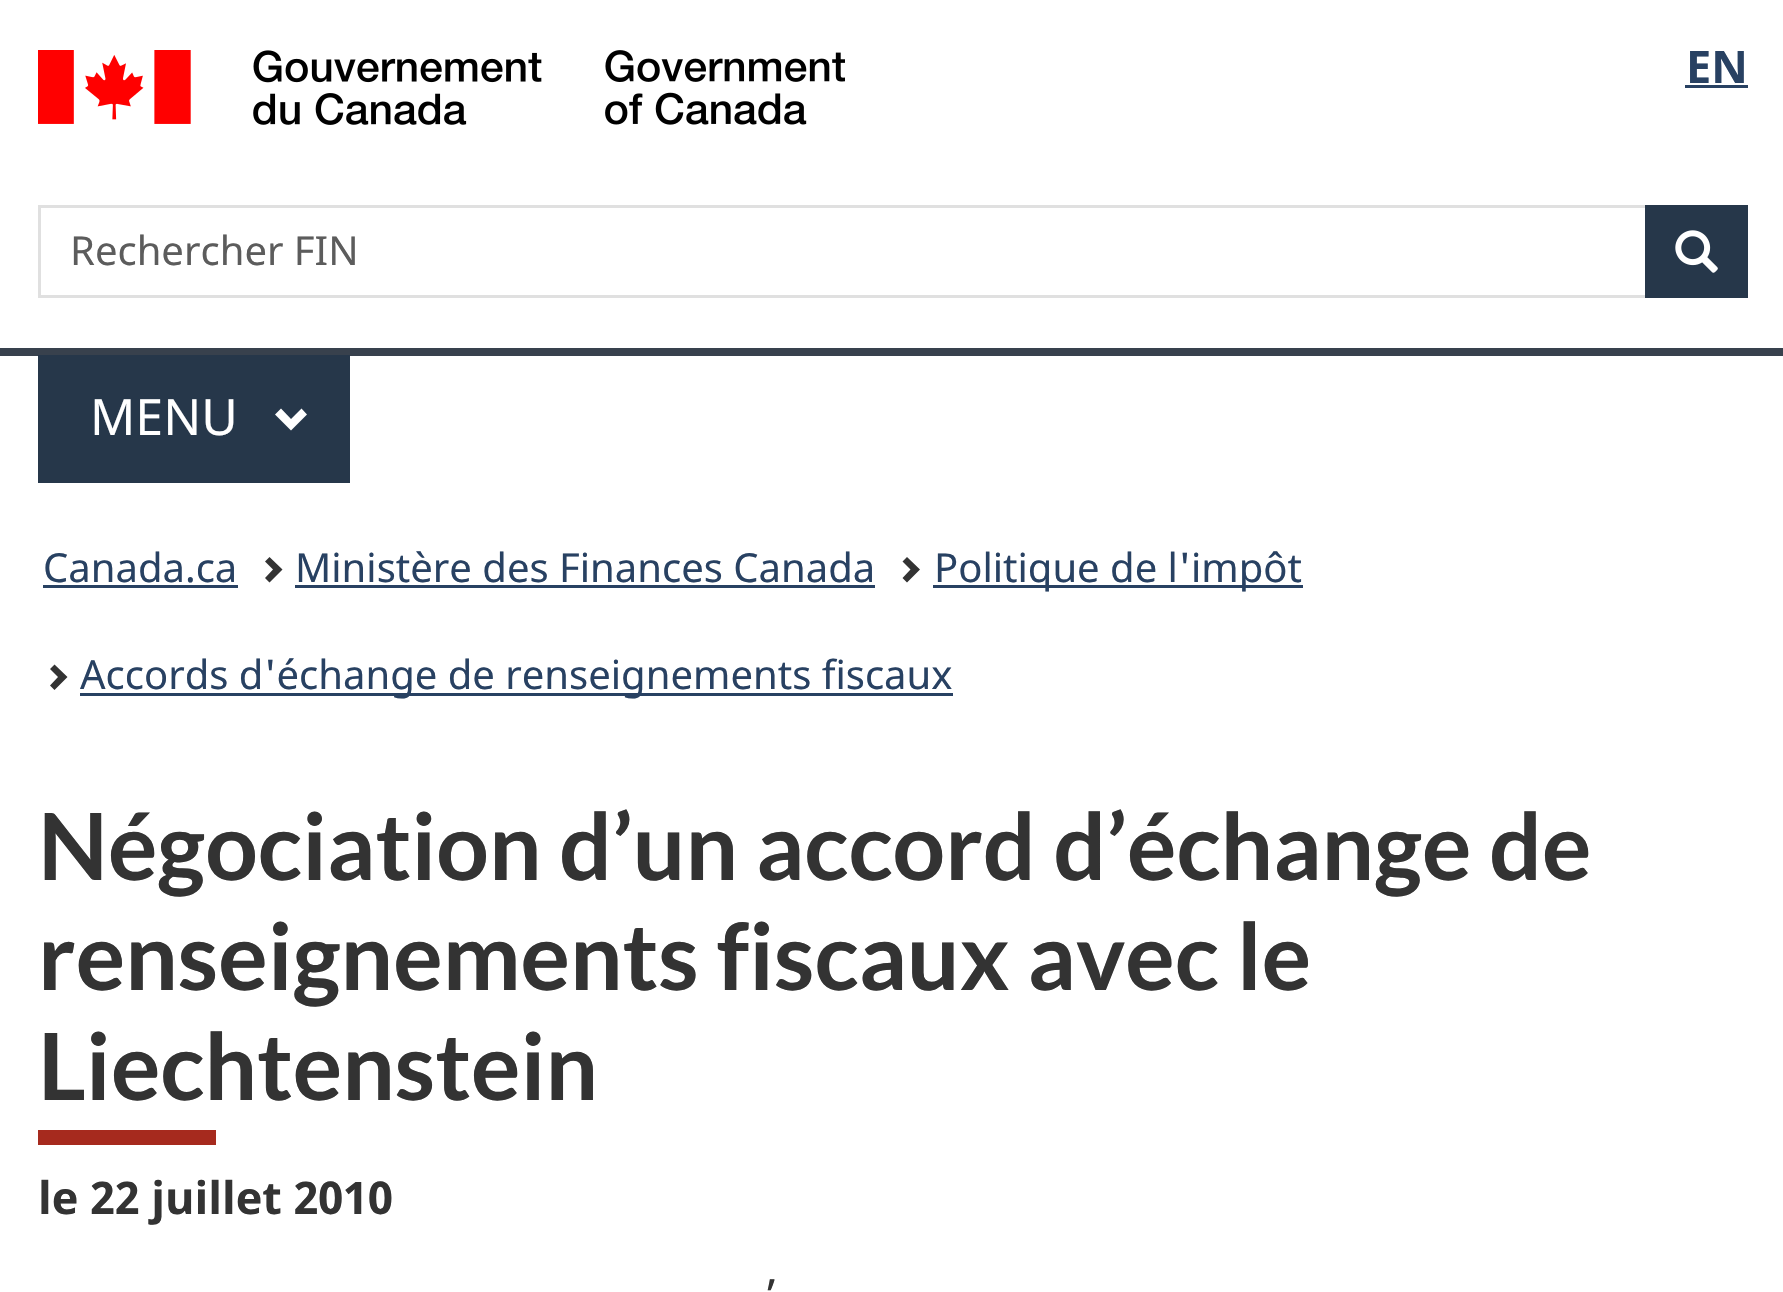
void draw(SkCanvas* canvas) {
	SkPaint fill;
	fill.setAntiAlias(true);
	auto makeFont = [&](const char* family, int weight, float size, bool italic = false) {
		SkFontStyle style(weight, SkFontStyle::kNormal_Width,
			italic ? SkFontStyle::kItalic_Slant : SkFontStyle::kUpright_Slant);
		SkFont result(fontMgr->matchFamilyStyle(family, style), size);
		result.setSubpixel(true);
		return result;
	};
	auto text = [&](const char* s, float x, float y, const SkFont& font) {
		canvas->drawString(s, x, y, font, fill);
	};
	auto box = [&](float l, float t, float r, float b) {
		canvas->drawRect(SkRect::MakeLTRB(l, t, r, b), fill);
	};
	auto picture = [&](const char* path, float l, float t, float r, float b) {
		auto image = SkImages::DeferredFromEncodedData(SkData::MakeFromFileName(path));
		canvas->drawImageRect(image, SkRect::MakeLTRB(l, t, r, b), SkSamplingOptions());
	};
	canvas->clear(0xFFFFFFFF);
	picture("image0.png", 38, 50, 845, 125);
	fill.setColor(0xFF284162);
	box(1685, 85, 1748, 88);
	fill.setStyle(SkPaint::kStroke_Style);
	fill.setStrokeWidth(3);
	fill.setColor(0xFFE0E0E0);
	canvas->drawRect(SkRect::MakeLTRB(39.5f, 206.5f, 1746.5f, 296.5f), fill);
	fill.setStyle(SkPaint::kFill_Style);
	fill.setColor(0xFF26374A);
	box(1645, 205, 1748, 298);
	picture("image1.png", 1675, 230, 1718, 273);
	fill.setColor(0xFF38414D);
	box(0, 348, 1783, 356);
	fill.setColor(0xFF26374A);
	box(38, 355, 350, 483);
	fill.setColor(0xFFFFFFFF);
	canvas->drawPath(SkPathBuilder().moveTo(307, 414.5f).lineTo(291, 430.5f).lineTo(275, 414.5f).lineTo(281, 408.5f).lineTo(291, 419).lineTo(301.5f, 408.5f).close().detach(), fill);
	fill.setColor(0xFF284162);
	box(43, 585, 238, 588);
	fill.setColor(0xFF333333);
	canvas->drawPath(SkPathBuilder().moveTo(282.5f, 569.5f).lineTo(269.5f, 582.5f).lineTo(265, 578).lineTo(273, 569.5f).lineTo(265, 561.5f).lineTo(269.5f, 557).close().detach(), fill);
	fill.setColor(0xFF284162);
	box(295, 585, 875, 588);
	fill.setColor(0xFF333333);
	canvas->drawPath(SkPathBuilder().moveTo(920, 569.5f).lineTo(907, 582.5f).lineTo(902.5f, 578).lineTo(910.5f, 569.5f).lineTo(902.5f, 561.5f).lineTo(907, 557).close().detach(), fill);
	fill.setColor(0xFF284162);
	box(933, 585, 1303, 588);
	fill.setColor(0xFF333333);
	canvas->drawPath(SkPathBuilder().moveTo(67.5f, 677).lineTo(54.5f, 690).lineTo(50, 685.5f).lineTo(58, 677).lineTo(50, 669).lineTo(54.5f, 664.5f).close().detach(), fill);
	fill.setColor(0xFF284162);
	box(80, 693, 953, 696);
	fill.setColor(0xFFA62A1E);
	box(38, 1130, 216, 1145);
	auto font1 = makeFont("Noto Sans", 700, 45);
	fill.setColor(0xFF284162);
	text("EN", 1686, 83, font1);
	auto font2 = makeFont("Noto Sans", 400, 40);
	fill.setColor(0xFF5C5C5C);
	text("Rechercher FIN", 70, 265, font2);
	auto font3 = makeFont("Noto Sans", 400, 50);
	fill.setColor(0xFFFFFFFF);
	text("MENU", 90, 435, font3);
	fill.setColor(0xFF284162);
	text("Canada.ca", 43, 582, font2);
	text("Ministère des Finances Canada", 295, 582, font2);
	text("Politique de l'impôt", 934, 582, font2);
	text("Accords d'échange de renseignements fiscaux", 80, 689, font2);
	auto font4 = makeFont("Lato", 700, 92.5f);
	fill.setColor(0xFF333333);
	text("Négociation d’un accord d’échange de", 38, 880, font4);
	text("renseignements fiscaux avec le", 38, 990, font4);
	text("Liechtenstein", 38, 1100, font4);
	text("le 22 juillet 2010", 38, 1214, font1);
	auto font5 = makeFont("Noto Sans", 400, 45);
	text("’", 764, 1312, font5);
}
